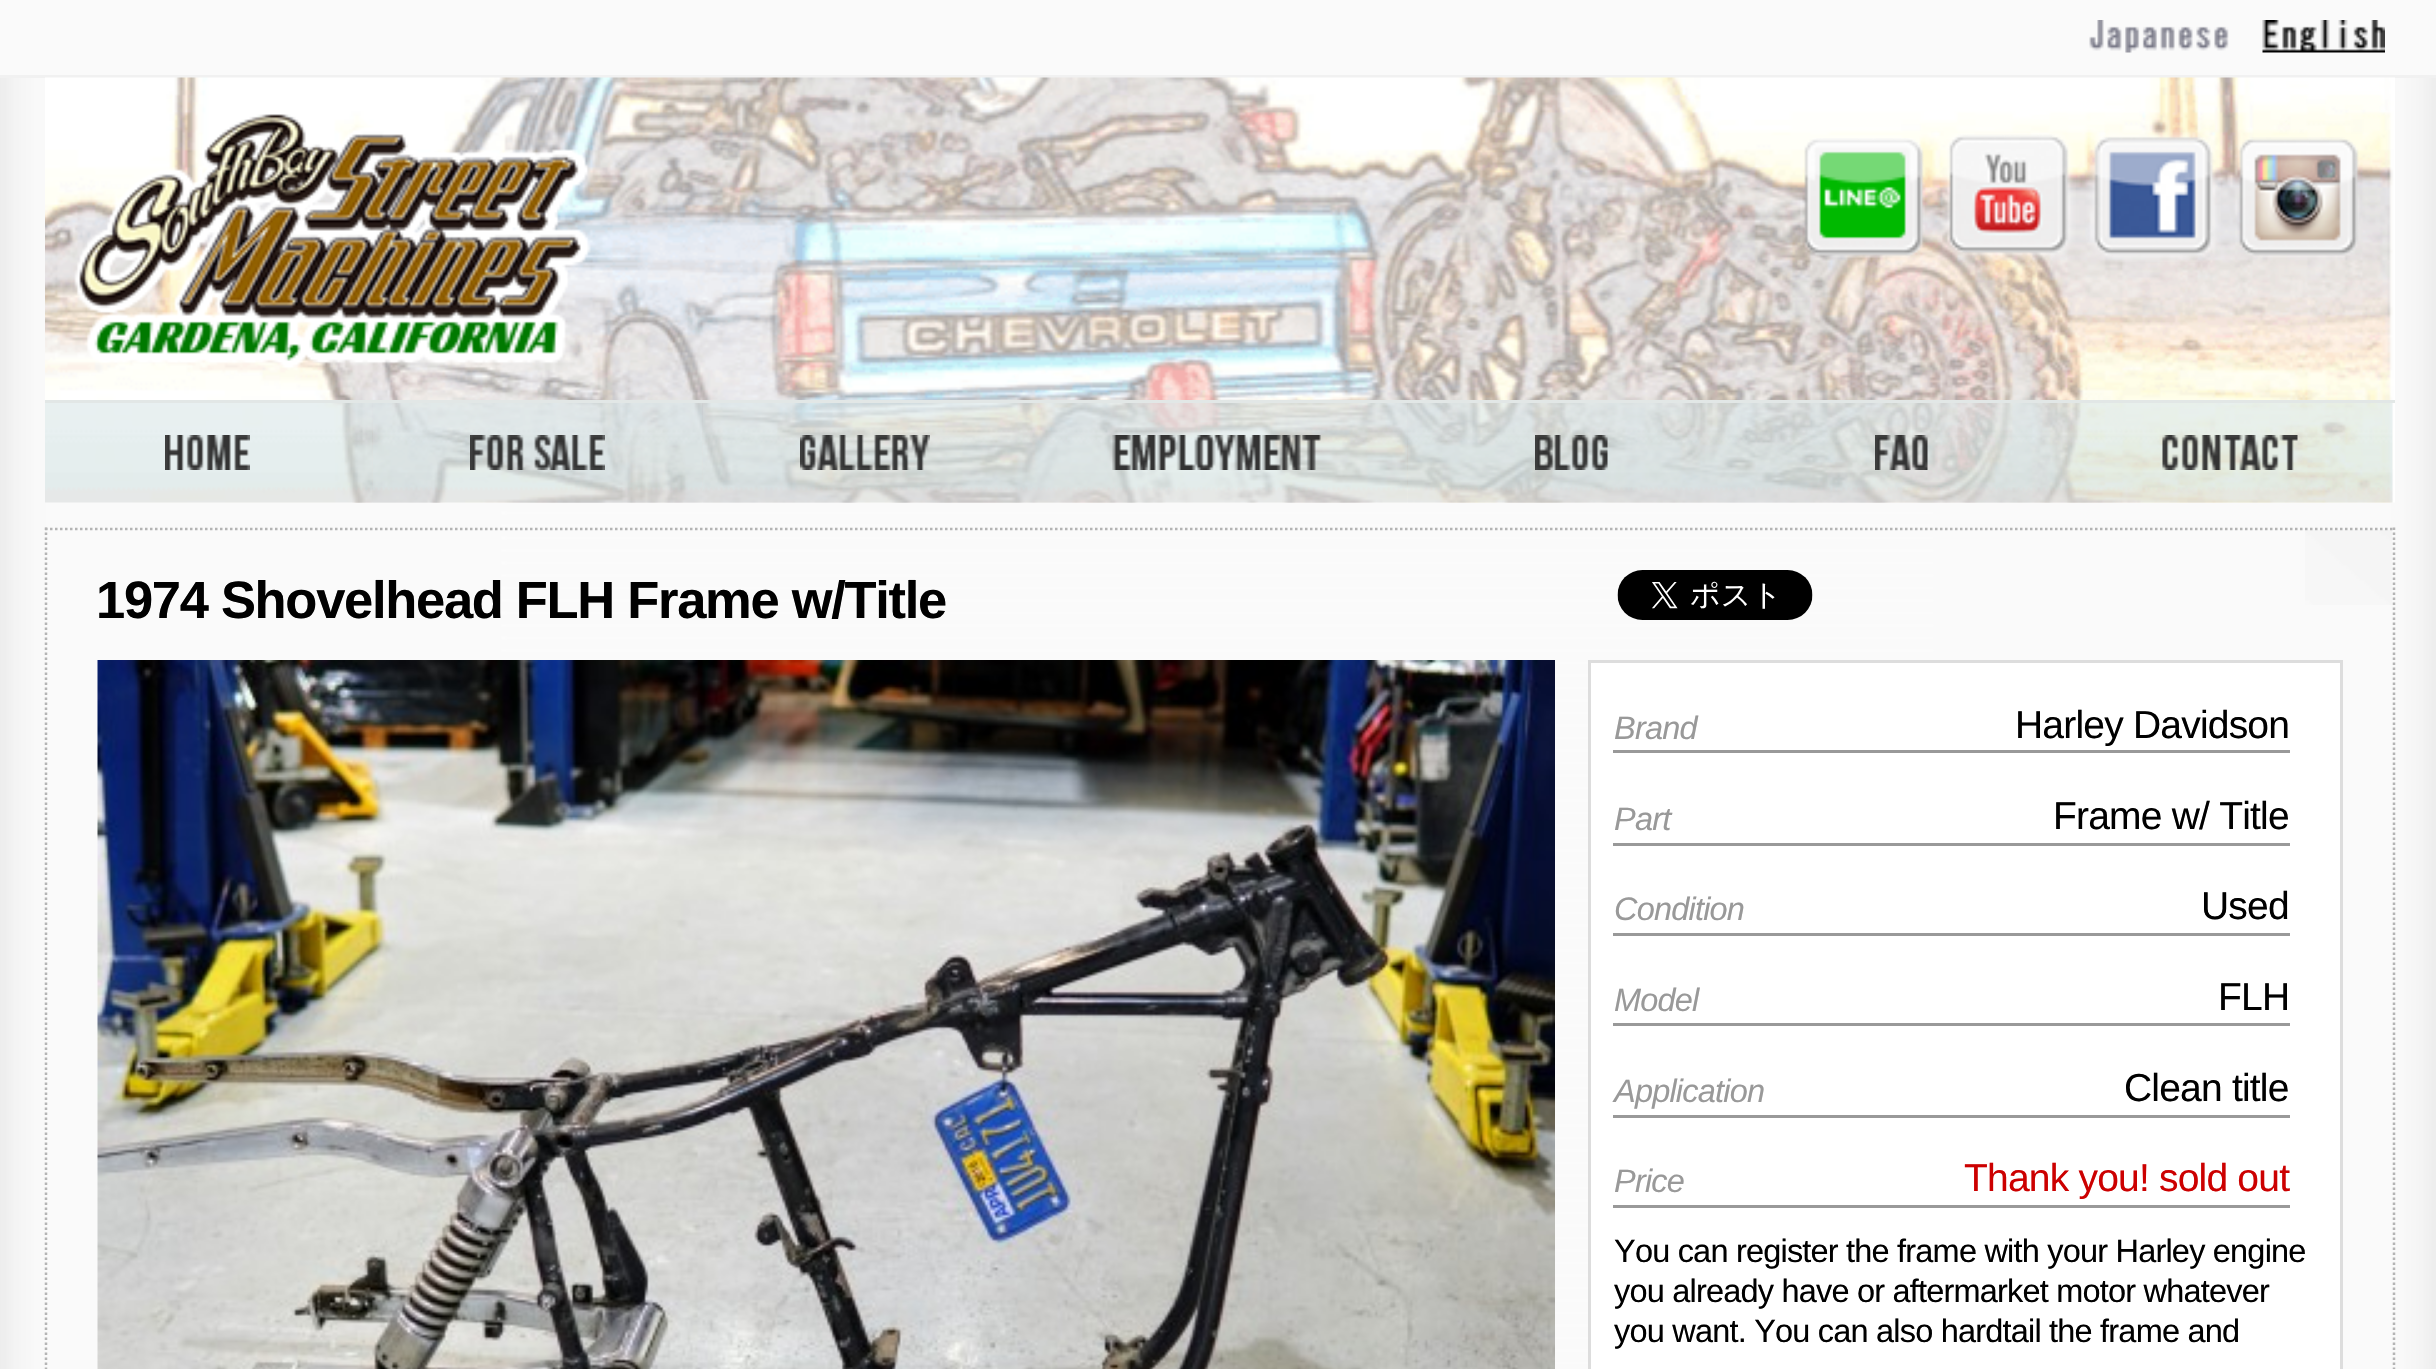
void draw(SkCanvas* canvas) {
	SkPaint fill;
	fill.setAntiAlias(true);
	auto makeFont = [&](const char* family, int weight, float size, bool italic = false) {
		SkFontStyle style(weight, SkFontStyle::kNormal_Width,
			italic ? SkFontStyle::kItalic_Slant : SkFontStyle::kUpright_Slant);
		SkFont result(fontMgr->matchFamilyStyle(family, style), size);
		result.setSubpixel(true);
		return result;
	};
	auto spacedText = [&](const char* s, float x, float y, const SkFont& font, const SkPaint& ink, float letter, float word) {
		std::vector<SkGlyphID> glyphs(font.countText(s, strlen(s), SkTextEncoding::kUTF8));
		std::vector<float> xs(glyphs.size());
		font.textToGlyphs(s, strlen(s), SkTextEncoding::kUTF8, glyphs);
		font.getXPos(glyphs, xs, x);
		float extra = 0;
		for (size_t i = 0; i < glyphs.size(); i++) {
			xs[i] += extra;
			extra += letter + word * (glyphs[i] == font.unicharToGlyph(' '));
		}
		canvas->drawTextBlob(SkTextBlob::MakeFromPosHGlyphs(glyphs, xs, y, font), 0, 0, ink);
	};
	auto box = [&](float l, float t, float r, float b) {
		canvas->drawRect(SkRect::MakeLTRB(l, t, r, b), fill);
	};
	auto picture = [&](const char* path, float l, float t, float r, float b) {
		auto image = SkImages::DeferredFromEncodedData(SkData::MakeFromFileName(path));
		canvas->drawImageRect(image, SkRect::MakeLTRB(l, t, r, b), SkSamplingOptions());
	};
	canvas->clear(0xFFFFFFFF);
	picture("image0.png", 0, 78, 2436, 1369);
	fill.setColor(0xFFFAFAFA);
	box(0, 0, 2436, 75);
	fill.setColor(0xFFF1F1F1);
	box(0, 75, 2436, 78);
	picture("image1.png", 2089, 20, 2229, 53);
	picture("image2.png", 2262, 20, 2385, 53);
	picture("image3.png", 45, 77, 2395, 503);
	picture("image4.png", 74, 114, 591, 370);
	picture("image5.png", 1800, 138, 1925, 258);
	picture("image6.png", 1941, 133, 2076, 262);
	picture("image7.png", 2086, 129, 2221, 262);
	picture("image8.png", 2234, 137, 2359, 258);
	fill.setColor(0xFFE2E7E6);
	box(45, 400, 2395, 403);
	picture("image9.png", 45, 403, 373, 503);
	picture("image10.png", 165, 435, 250, 470);
	picture("image11.png", 372, 403, 703, 503);
	picture("image12.png", 470, 435, 605, 470);
	picture("image13.png", 702, 403, 1030, 503);
	picture("image14.png", 800, 435, 930, 470);
	picture("image15.png", 1030, 403, 1408, 503);
	picture("image16.png", 1112, 435, 1321, 470);
	picture("image17.png", 1407, 403, 1735, 503);
	picture("image18.png", 1535, 435, 1608, 470);
	picture("image19.png", 1735, 403, 2065, 503);
	picture("image20.png", 1875, 435, 1928, 470);
	picture("image21.png", 2065, 403, 2393, 503);
	picture("image22.png", 2162, 435, 2298, 470);
	picture("image23.png", 2305, 530, 2392, 605);
	fill.setStyle(SkPaint::kStroke_Style);
	fill.setStrokeWidth(2.5f);
	fill.setColor(0xFFB4B4B4);
	fill.setPathEffect(SkDashPathEffect::Make({{2.5f, 2.5f}}, 0));
	canvas->drawPath(SkPathBuilder().moveTo(45, 529).lineTo(2395, 529).detach(), fill);
	fill.setPathEffect(nullptr);
	fill.setPathEffect(SkDashPathEffect::Make({{2.5f, 2.5f}}, 0));
	canvas->drawPath(SkPathBuilder().moveTo(2394, 527.5f).lineTo(2394, 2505).detach(), fill);
	fill.setPathEffect(nullptr);
	fill.setPathEffect(SkDashPathEffect::Make({{2.5f, 2.5f}}, 0));
	canvas->drawPath(SkPathBuilder().moveTo(46, 527.5f).lineTo(46, 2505).detach(), fill);
	fill.setPathEffect(nullptr);
	picture("image24.png", 1617, 570, 1813, 620);
	picture("image25.png", 97, 660, 1555, 1369);
	fill.setStyle(SkPaint::kFill_Style);
	fill.setColor(0xFFFFFFFF);
	canvas->drawRect(SkRect::MakeLTRB(1589.5f, 661.5f, 2341.5f, 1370.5f), fill);
	fill.setStyle(SkPaint::kStroke_Style);
	fill.setStrokeWidth(3);
	fill.setColor(0xFFDDDDDD);
	canvas->drawRect(SkRect::MakeLTRB(1589.5f, 661.5f, 2341.5f, 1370.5f), fill);
	fill.setStyle(SkPaint::kFill_Style);
	fill.setColor(0xFF999999);
	box(1613, 750, 2290, 753);
	box(1613, 843, 2290, 846);
	box(1613, 933, 2290, 936);
	box(1613, 1023, 2290, 1026);
	box(1613, 1115, 2290, 1118);
	box(1613, 1205, 2290, 1208);
	auto font1 = makeFont("Liberation Sans", 700, 52.5f);
	fill.setColor(0xFF000000);
	spacedText("1974 Shovelhead FLH Frame w/Title", 96, 618, font1, fill, -1.3f, 0);
	auto font2 = makeFont("Liberation Sans", 400, 32.5f, true);
	fill.setColor(0xFF999999);
	spacedText("Brand", 1614, 739, font2, fill, -0.8f, 0);
	auto font3 = makeFont("Liberation Sans", 400, 39);
	fill.setColor(0xFF000000);
	spacedText("Harley Davidson", 2015, 738, font3, fill, -0.8f, 0);
	fill.setColor(0xFF999999);
	spacedText("Part", 1614, 830, font2, fill, -0.8f, 0);
	fill.setColor(0xFF000000);
	spacedText("Frame w/ Title", 2053, 829, font3, fill, -0.8f, 0);
	fill.setColor(0xFF999999);
	spacedText("Condition", 1614, 920, font2, fill, -0.8f, 0);
	fill.setColor(0xFF000000);
	spacedText("Used", 2201, 919, font3, fill, -0.8f, 0);
	fill.setColor(0xFF999999);
	spacedText("Model", 1614, 1011, font2, fill, -0.8f, 0);
	fill.setColor(0xFF000000);
	spacedText("FLH", 2218, 1010, font3, fill, -0.8f, 0);
	fill.setColor(0xFF999999);
	spacedText("Application", 1614, 1102, font2, fill, -0.8f, 0);
	fill.setColor(0xFF000000);
	spacedText("Clean title", 2124, 1101, font3, fill, -0.8f, 0);
	fill.setColor(0xFF999999);
	spacedText("Price", 1614, 1192, font2, fill, -0.8f, 0);
	fill.setColor(0xFFCC0000);
	spacedText("Thank you! sold out", 1964, 1191, font3, fill, -0.8f, 0);
	auto font4 = makeFont("Liberation Sans", 400, 32.5f);
	fill.setColor(0xFF000000);
	spacedText("You can register the frame with your Harley engine", 1614, 1262, font4, fill, -0.8f, 0);
	spacedText("you already have or aftermarket motor whatever", 1614, 1302, font4, fill, -0.8f, 0);
	spacedText("you want. You can also hardtail the frame and", 1614, 1342, font4, fill, -0.8f, 0);
}
